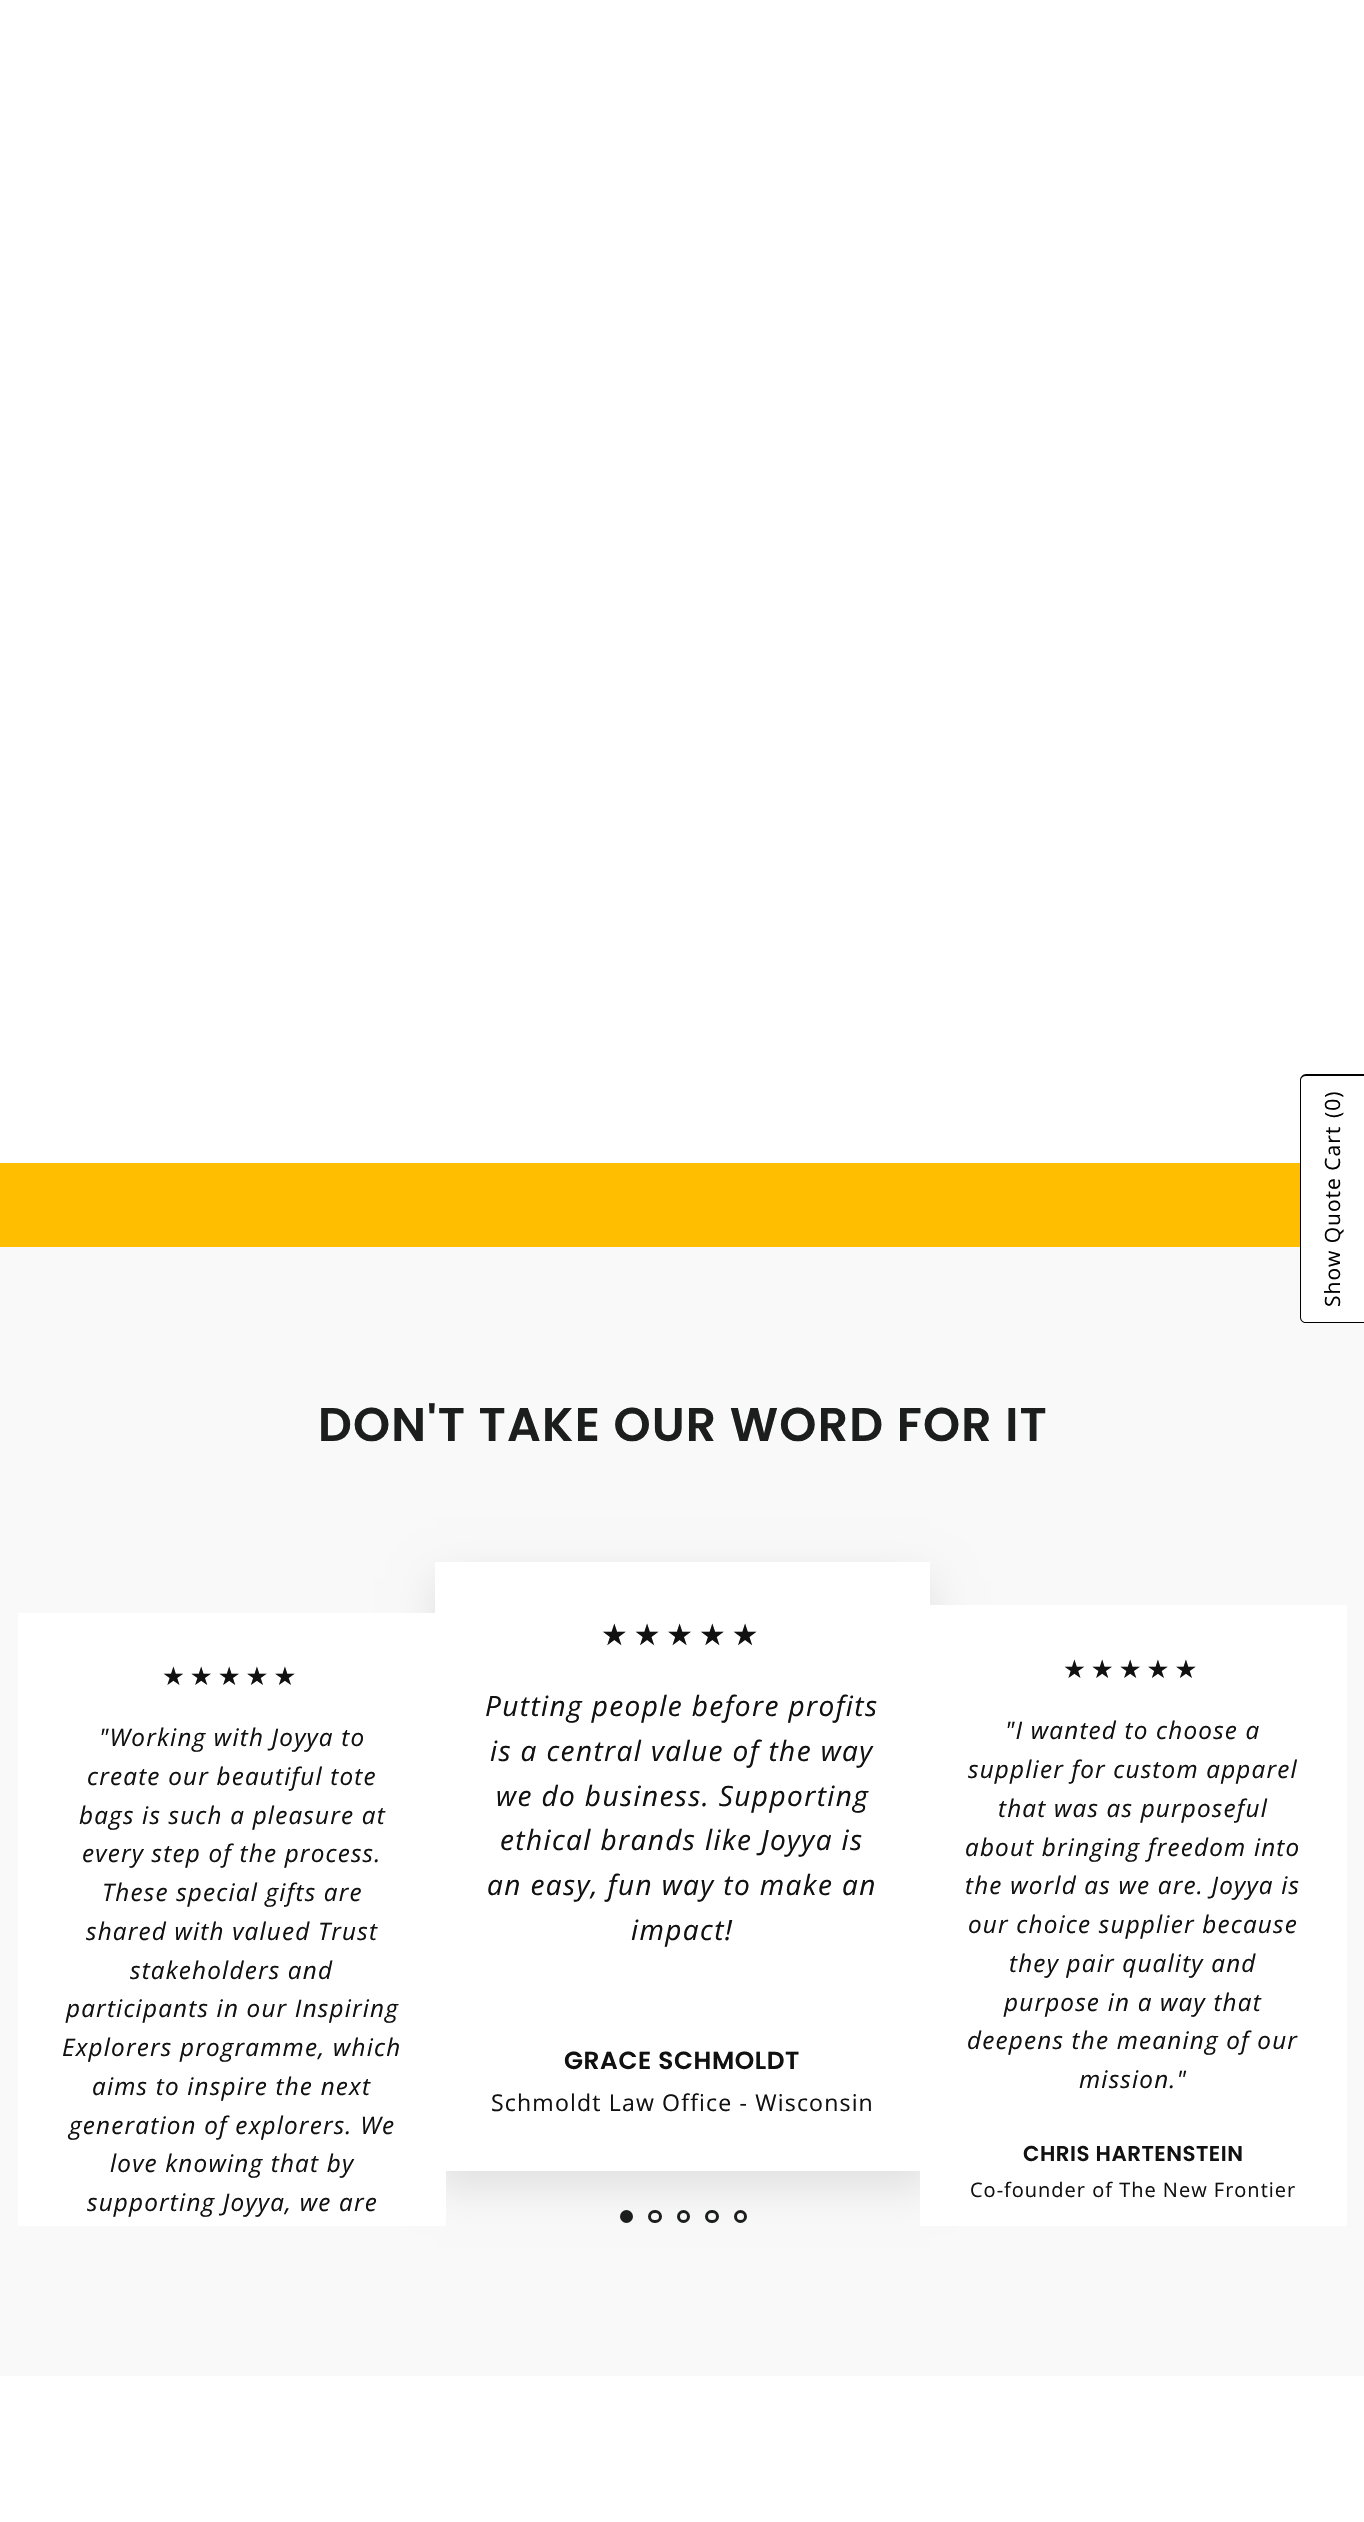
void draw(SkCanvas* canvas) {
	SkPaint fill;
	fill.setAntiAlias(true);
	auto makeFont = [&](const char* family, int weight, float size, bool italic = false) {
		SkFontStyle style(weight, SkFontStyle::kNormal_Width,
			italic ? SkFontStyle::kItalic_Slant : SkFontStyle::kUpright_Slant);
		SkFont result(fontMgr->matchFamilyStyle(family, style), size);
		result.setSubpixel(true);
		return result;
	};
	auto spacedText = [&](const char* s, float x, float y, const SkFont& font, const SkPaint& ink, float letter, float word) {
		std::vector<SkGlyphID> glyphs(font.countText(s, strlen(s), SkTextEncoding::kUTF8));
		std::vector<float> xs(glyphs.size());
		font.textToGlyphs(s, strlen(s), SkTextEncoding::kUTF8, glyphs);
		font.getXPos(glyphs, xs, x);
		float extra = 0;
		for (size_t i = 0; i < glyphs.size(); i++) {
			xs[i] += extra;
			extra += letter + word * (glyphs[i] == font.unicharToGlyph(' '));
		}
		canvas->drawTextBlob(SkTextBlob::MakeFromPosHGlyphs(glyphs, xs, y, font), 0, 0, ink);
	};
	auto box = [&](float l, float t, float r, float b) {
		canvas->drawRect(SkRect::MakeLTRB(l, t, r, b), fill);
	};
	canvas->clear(0xFFFFFFFF);
	fill.setColor(0xFFF9F9F9);
	box(0, 1247, 1364, 2376);
	fill.setColor(0xFFFFFFFF);
	canvas->drawPath(SkPathBuilder().moveTo(1300, 1317).lineTo(1300, 1080).cubicTo(1300, 1077, 1303, 1074, 1306, 1074).lineTo(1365, 1074).lineTo(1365, 1323).lineTo(1306, 1323).cubicTo(1303, 1323, 1300, 1321, 1300, 1317).close().detach(), fill);
	fill.setColor(0xFF000000);
	canvas->drawPath(SkPathBuilder(SkPathFillType::kEvenOdd).moveTo(1300, 1317).lineTo(1300, 1080).cubicTo(1300, 1077, 1303, 1074, 1306, 1074).lineTo(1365, 1074).lineTo(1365, 1323).lineTo(1306, 1323).cubicTo(1303, 1323, 1300, 1321, 1300, 1317).close().moveTo(1301, 1317).lineTo(1301, 1080).cubicTo(1301, 1078, 1303, 1076, 1306, 1076).lineTo(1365, 1076).lineTo(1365, 1322).lineTo(1306, 1322).cubicTo(1303, 1322, 1301, 1320, 1301, 1317).close().detach(), fill);
	fill.setColor(0xFFFFBF00);
	box(0, 1163, 1300, 1247);
	fill.setColor(0x1A000000);
	fill.setMaskFilter(SkMaskFilter::MakeBlur(kNormal_SkBlurStyle, 20.5f));
	canvas->drawRect(SkRect::MakeLTRB(435, 1578, 930, 2187), fill);
	fill.setMaskFilter(nullptr);
	fill.setColor(0xFFFFFFFF);
	box(435, 1562, 930, 2171);
	box(18, 1613, 446, 2226);
	box(920, 1605, 1347, 2226);
	fill.setColor(0xFF1C1D1D);
	canvas->drawCircle(626.5f, 2216.5f, 5, fill);
	fill.setStyle(SkPaint::kStroke_Style);
	fill.setStrokeWidth(3);
	canvas->drawCircle(626.5f, 2216.5f, 5, fill);
	canvas->drawRoundRect(SkRect::MakeLTRB(649.5f, 2211.5f, 660.5f, 2221.5f), 5, 5, fill);
	canvas->drawCircle(683.5f, 2216.5f, 5, fill);
	canvas->drawRoundRect(SkRect::MakeLTRB(706.5f, 2211.5f, 717.5f, 2221.5f), 5, 5, fill);
	canvas->drawCircle(740.5f, 2216.5f, 5, fill);
	auto font1 = makeFont("Open Sans", 400, 21);
	fill.setStyle(SkPaint::kFill_Style);
	fill.setColor(0xFF000000);
	canvas->save();
	canvas->rotate(-90, 1340, 1118);
	spacedText("(0)", 1340, 1118, font1, fill, 1, 0);
	canvas->restore();
	canvas->save();
	canvas->rotate(-90, 1340, 1307);
	spacedText("Show Quote Cart", 1340, 1307, font1, fill, 1, 0);
	canvas->restore();
	auto font2 = makeFont("Poppins", 600, 47.25f);
	fill.setColor(0xFF1C1D1D);
	spacedText("DON'T TAKE OUR WORD FOR IT", 318, 1441, font2, fill, 1.2f, 0);
	auto font3 = makeFont("DejaVu Sans", 400, 25.5f);
	fill.setColor(0xFF111111);
	spacedText("★★★★★", 162, 1685, font3, fill, 5, 0);
	auto font4 = makeFont("Open Sans", 400, 24.25f, true);
	spacedText("\"Working with Joyya to", 99, 1746, font4, fill, 1.2f, 0);
	spacedText("create our beautiful tote", 87, 1785, font4, fill, 1.2f, 0);
	spacedText("bags is such a pleasure at", 79, 1824, font4, fill, 1.2f, 0);
	spacedText("every step of the process.", 82, 1862, font4, fill, 1.2f, 0);
	spacedText("These special gifts are", 102, 1901, font4, fill, 1.2f, 0);
	spacedText("shared with valued Trust", 86, 1940, font4, fill, 1.2f, 0);
	spacedText("stakeholders and", 130, 1979, font4, fill, 1.2f, 0);
	spacedText("participants in our Inspiring", 66, 2017, font4, fill, 1.2f, 0);
	spacedText("Explorers programme, which", 62, 2056, font4, fill, 1.2f, 0);
	spacedText("aims to inspire the next", 92, 2095, font4, fill, 1.2f, 0);
	spacedText("generation of explorers. We", 69, 2134, font4, fill, 1.2f, 0);
	spacedText("love knowing that by", 110, 2172, font4, fill, 1.2f, 0);
	spacedText("supporting Joyya, we are", 87, 2211, font4, fill, 1.2f, 0);
	auto font5 = makeFont("DejaVu Sans", 400, 29.75f);
	spacedText("★★★★★", 601, 1645, font5, fill, 6, 0);
	auto font6 = makeFont("Open Sans", 400, 28, true);
	spacedText("Putting people before profits", 485, 1716, font6, fill, 1.4f, 0);
	spacedText("is a central value of the way", 490, 1761, font6, fill, 1.4f, 0);
	spacedText("we do business. Supporting", 496, 1806, font6, fill, 1.4f, 0);
	spacedText("ethical brands like Joyya is", 500, 1850, font6, fill, 1.4f, 0);
	spacedText("an easy, fun way to make an", 487, 1895, font6, fill, 1.4f, 0);
	spacedText("impact!", 631, 1940, font6, fill, 1.4f, 0);
	auto font7 = makeFont("Poppins", 600, 24.75f);
	spacedText("GRACE SCHMOLDT", 564, 2069, font7, fill, 0.6f, 0);
	auto font8 = makeFont("Open Sans", 400, 23.1f);
	spacedText("Schmoldt Law Office - Wisconsin", 491, 2111, font8, fill, 1.15f, 0);
	spacedText("★★★★★", 1063, 1678, font3, fill, 5, 0);
	spacedText("\"I wanted to choose a", 1005, 1739, font4, fill, 1.2f, 0);
	spacedText("supplier for custom apparel", 968, 1778, font4, fill, 1.2f, 0);
	spacedText("that was as purposeful", 998, 1817, font4, fill, 1.2f, 0);
	spacedText("about bringing freedom into", 965, 1856, font4, fill, 1.2f, 0);
	spacedText("the world as we are. Joyya is", 965, 1894, font4, fill, 1.2f, 0);
	spacedText("our choice supplier because", 968, 1933, font4, fill, 1.2f, 0);
	spacedText("they pair quality and", 1009, 1972, font4, fill, 1.2f, 0);
	spacedText("purpose in a way that", 1004, 2011, font4, fill, 1.2f, 0);
	spacedText("deepens the meaning of our", 967, 2049, font4, fill, 1.2f, 0);
	spacedText("mission.\"", 1079, 2088, font4, fill, 1.2f, 0);
	auto font9 = makeFont("Poppins", 600, 21.4f);
	spacedText("CHRIS HARTENSTEIN", 1023, 2161, font9, fill, 0.5f, 0);
	auto font10 = makeFont("Open Sans", 400, 20);
	spacedText("Co-founder of The New Frontier", 970, 2197, font10, fill, 1, 0);
}
